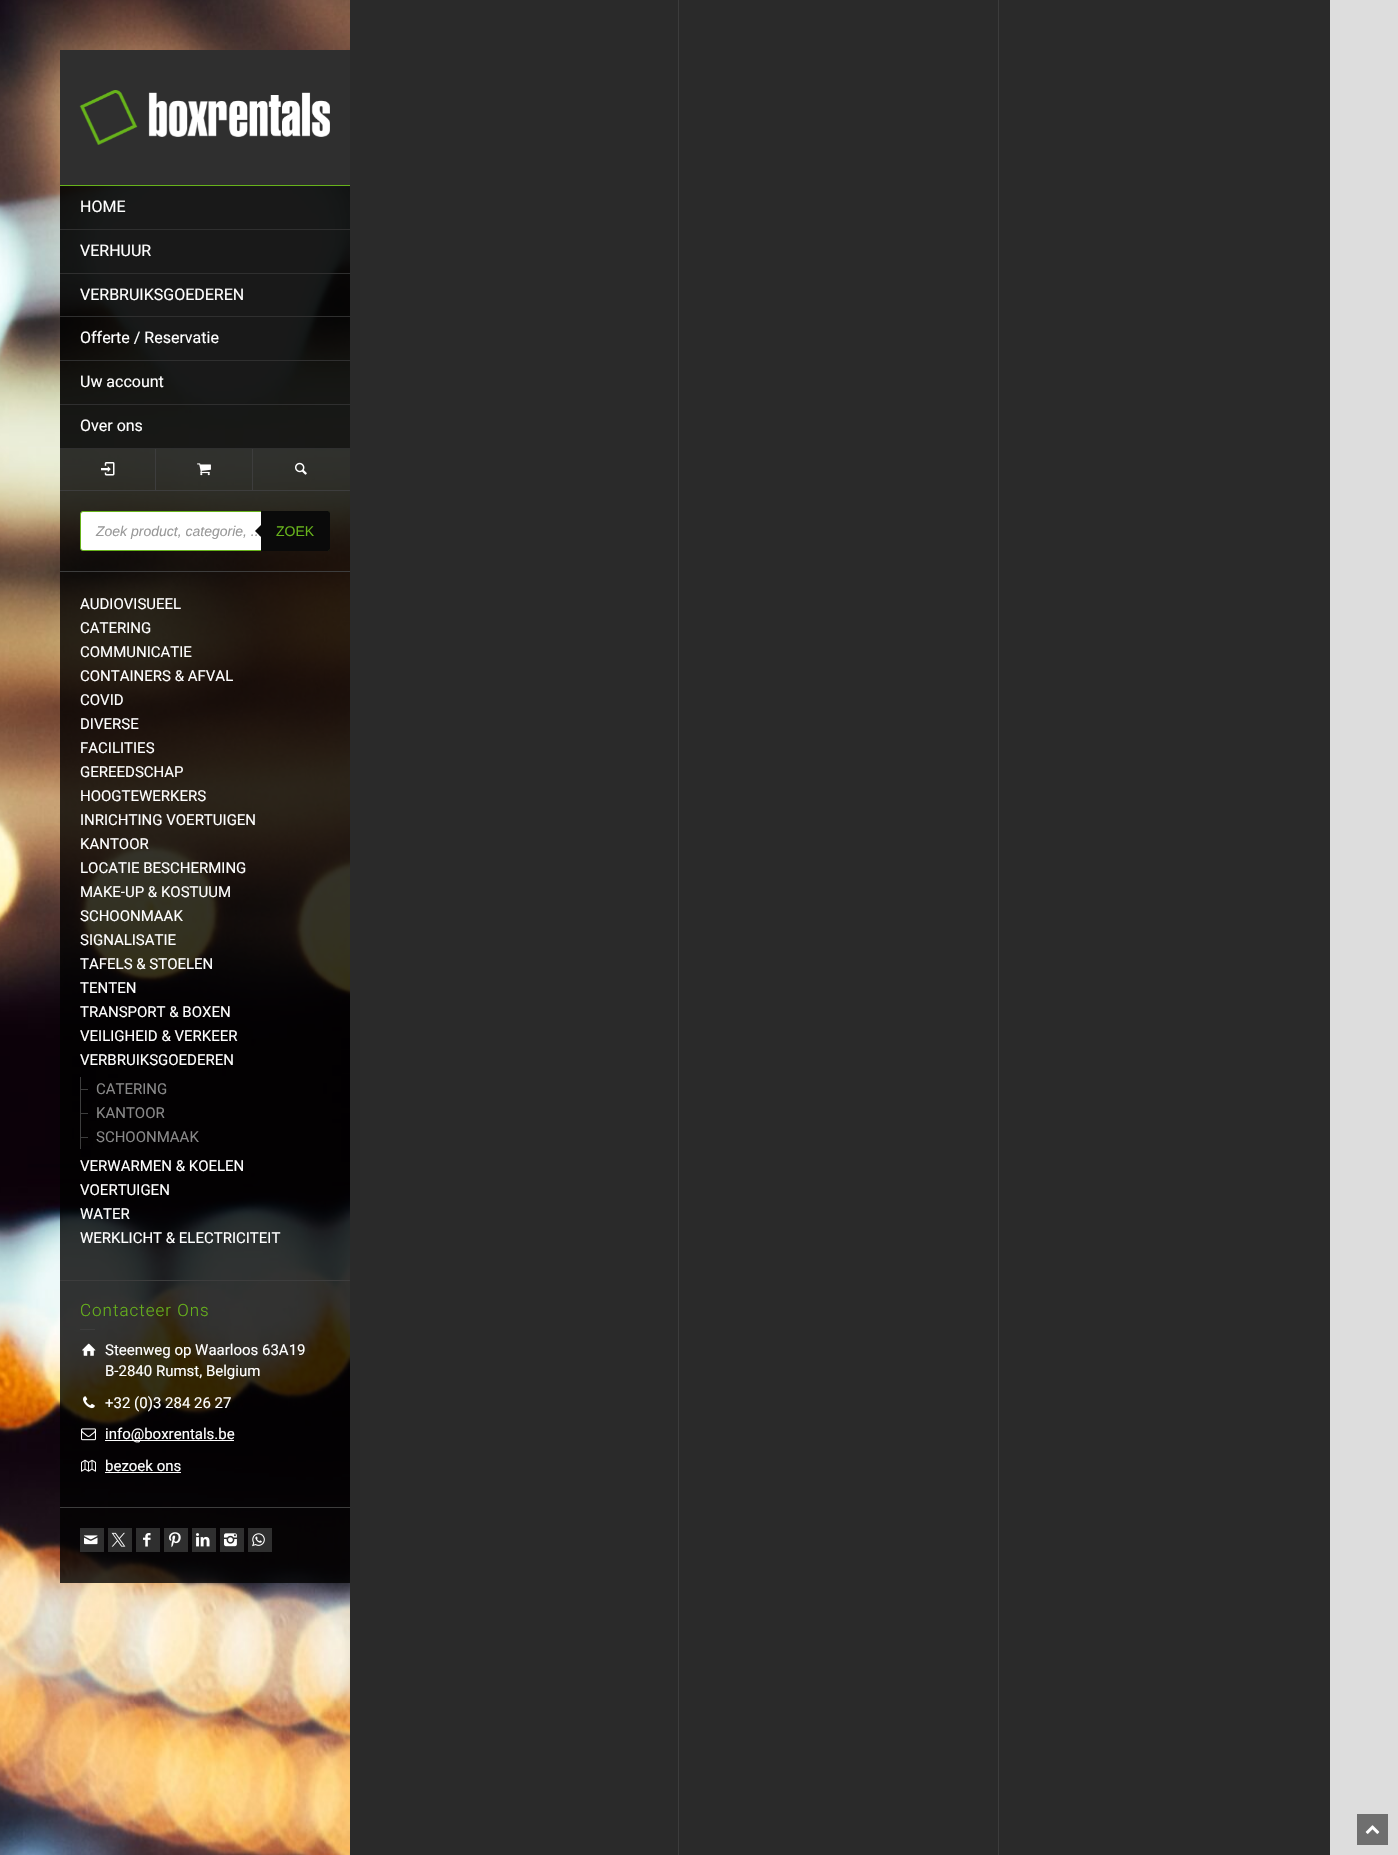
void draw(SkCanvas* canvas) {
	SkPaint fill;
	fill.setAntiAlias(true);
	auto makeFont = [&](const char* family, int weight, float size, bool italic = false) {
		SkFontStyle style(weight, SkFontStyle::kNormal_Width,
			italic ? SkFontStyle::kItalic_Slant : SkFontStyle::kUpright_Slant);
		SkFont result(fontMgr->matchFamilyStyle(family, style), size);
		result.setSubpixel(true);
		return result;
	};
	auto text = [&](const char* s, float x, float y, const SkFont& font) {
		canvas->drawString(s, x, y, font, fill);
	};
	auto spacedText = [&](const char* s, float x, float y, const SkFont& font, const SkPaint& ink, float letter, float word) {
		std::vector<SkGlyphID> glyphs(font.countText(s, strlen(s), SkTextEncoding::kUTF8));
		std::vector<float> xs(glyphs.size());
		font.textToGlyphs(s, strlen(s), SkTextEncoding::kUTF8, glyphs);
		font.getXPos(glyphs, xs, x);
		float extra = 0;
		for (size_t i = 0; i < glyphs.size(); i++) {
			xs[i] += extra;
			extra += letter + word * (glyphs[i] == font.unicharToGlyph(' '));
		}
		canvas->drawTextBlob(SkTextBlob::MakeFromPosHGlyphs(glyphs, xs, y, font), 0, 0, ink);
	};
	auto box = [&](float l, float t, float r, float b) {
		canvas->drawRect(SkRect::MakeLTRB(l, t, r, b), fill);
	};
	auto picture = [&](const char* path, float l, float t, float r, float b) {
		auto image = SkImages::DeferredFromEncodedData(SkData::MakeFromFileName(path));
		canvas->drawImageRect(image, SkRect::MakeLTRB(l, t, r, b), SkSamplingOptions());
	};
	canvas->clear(0xFFDDDDDD);
	picture("image0.png", 0, 0, 350, 1855);
	fill.setColor(0xFF2F2F2F);
	box(60, 50, 350, 185);
	fill.setColor(0xFF67B31B);
	box(60, 185, 350, 186);
	picture("image1.png", 79, 90, 330, 145);
	fill.setColor(0xE6000000);
	box(60, 186, 350, 229);
	fill.setColor(0xFF2F2F2F);
	box(60, 229, 350, 230);
	fill.setColor(0xE6000000);
	box(60, 230, 350, 273);
	fill.setColor(0xFF2F2F2F);
	box(60, 273, 350, 274);
	fill.setColor(0xE6000000);
	box(60, 274, 350, 316);
	fill.setColor(0xFF2F2F2F);
	box(60, 316, 350, 317);
	fill.setColor(0xE6000000);
	box(60, 317, 350, 360);
	fill.setColor(0xFF2F2F2F);
	box(60, 360, 350, 361);
	fill.setColor(0xE6000000);
	box(60, 361, 350, 404);
	fill.setColor(0xFF2F2F2F);
	box(60, 404, 350, 405);
	fill.setColor(0xE6000000);
	box(60, 405, 350, 448);
	fill.setColor(0xFF2F2F2F);
	box(60, 448, 350, 449);
	fill.setColor(0xCC000000);
	box(60, 449, 350, 490);
	fill.setColor(0xFF3D3D3D);
	box(60, 490, 350, 491);
	box(155, 449, 156, 490);
	picture("image2.png", 101, 462, 115, 476);
	box(252, 449, 253, 490);
	picture("image3.png", 197, 463, 211, 476);
	picture("image4.png", 295, 462, 307, 475);
	fill.setColor(0xCC000000);
	box(60, 491, 350, 1583);
	fill.setColor(0xFFFFFFFF);
	canvas->drawRoundRect(SkRect::MakeLTRB(80.5f, 511.5f, 329.5f, 550.5f), 2.5f, 2.5f, fill);
	fill.setStyle(SkPaint::kStroke_Style);
	fill.setStrokeWidth(1);
	fill.setColor(0xFF67B31B);
	canvas->drawRoundRect(SkRect::MakeLTRB(80.5f, 511.5f, 329.5f, 550.5f), 2.5f, 2.5f, fill);
	fill.setStyle(SkPaint::kFill_Style);
	fill.setColor(0xFF0A0A0A);
	canvas->drawPath(SkPathBuilder().moveTo(261, 511).lineTo(328, 511).cubicTo(329, 511, 330, 512, 330, 513).lineTo(330, 549).cubicTo(330, 550, 329, 551, 328, 551).lineTo(261, 551).close().detach(), fill);
	fill.setColor(0xFF3D3D3D);
	box(60, 571, 350, 572);
	box(80, 1077, 81, 1149);
	box(80, 1089, 88, 1090);
	box(80, 1113, 88, 1114);
	box(80, 1137, 88, 1138);
	box(60, 1280, 350, 1281);
	box(80, 1329, 95, 1330);
	picture("image5.png", 82, 1343, 96, 1356);
	picture("image6.png", 83, 1396, 95, 1409);
	picture("image7.png", 81, 1428, 96, 1441);
	fill.setColor(0xFFFFFFFF);
	box(105, 1440, 234, 1441);
	picture("image8.png", 81, 1459, 96, 1472);
	box(105, 1472, 181, 1473);
	fill.setColor(0xFF3D3D3D);
	box(60, 1507, 350, 1508);
	fill.setColor(0xFF2F2F2F);
	box(80, 1528, 104, 1552);
	picture("image9.png", 84, 1535, 98, 1545);
	box(108, 1528, 132, 1552);
	picture("image10.png", 111, 1532, 126, 1547);
	box(136, 1528, 160, 1552);
	picture("image11.png", 143, 1533, 151, 1547);
	box(164, 1528, 188, 1552);
	picture("image12.png", 169, 1532, 181, 1548);
	box(192, 1528, 216, 1552);
	picture("image13.png", 196, 1533, 210, 1547);
	box(220, 1528, 244, 1552);
	picture("image14.png", 224, 1533, 237, 1547);
	box(248, 1528, 272, 1552);
	picture("image15.png", 252, 1533, 265, 1547);
	fill.setColor(0xFF2A2A2A);
	box(350, 0, 1330, 1855);
	fill.setColor(0xFF3C3C3C);
	box(678, 0, 679, 1855);
	box(998, 0, 999, 1855);
	fill.setColor(0xFF6F6F6F);
	box(1357, 1814, 1388, 1845);
	picture("image16.png", 1365, 1825, 1380, 1834);
	auto font1 = makeFont("Roboto", 400, 16);
	fill.setColor(0xFFFFFFFF);
	text("HOME", 80, 212, font1);
	text("VERHUUR", 80, 256, font1);
	text("VERBRUIKSGOEDEREN", 80, 300, font1);
	text("Offerte / Reservatie", 80, 343, font1);
	text("Uw account", 80, 387, font1);
	text("Over ons", 80, 431, font1);
	auto font2 = makeFont("Liberation Sans", 400, 14, true);
	fill.setColor(0xFF999999);
	text("Zoek product, categorie, ...", 96, 536, font2);
	fill.setColor(0xFF0A0A0A);
	canvas->drawPath(SkPathBuilder().moveTo(263, 523).lineTo(263, 539).lineTo(255, 531).close().detach(), fill);
	auto font3 = makeFont("Liberation Sans", 400, 14);
	fill.setColor(0xFF67B31B);
	text("ZOEK", 276, 536, font3);
	auto font4 = makeFont("Roboto", 400, 15);
	fill.setColor(0xFFFFFFFF);
	text("AUDIOVISUEEL", 80, 609, font4);
	text("CATERING", 80, 633, font4);
	text("COMMUNICATIE", 80, 657, font4);
	text("CONTAINERS & AFVAL", 80, 681, font4);
	text("COVID", 80, 705, font4);
	text("DIVERSE", 80, 729, font4);
	text("FACILITIES", 80, 753, font4);
	text("GEREEDSCHAP", 80, 777, font4);
	text("HOOGTEWERKERS", 80, 801, font4);
	text("INRICHTING VOERTUIGEN", 80, 825, font4);
	text("KANTOOR", 80, 849, font4);
	text("LOCATIE BESCHERMING", 80, 873, font4);
	text("MAKE-UP & KOSTUUM", 80, 897, font4);
	text("SCHOONMAAK", 80, 921, font4);
	text("SIGNALISATIE", 80, 945, font4);
	text("TAFELS & STOELEN", 80, 969, font4);
	text("TENTEN", 80, 993, font4);
	text("TRANSPORT & BOXEN", 80, 1017, font4);
	text("VEILIGHEID & VERKEER", 80, 1041, font4);
	text("VERBRUIKSGOEDEREN", 80, 1065, font4);
	fill.setColor(0xFF888888);
	text("CATERING", 96, 1094, font4);
	text("KANTOOR", 96, 1118, font4);
	text("SCHOONMAAK", 96, 1142, font4);
	fill.setColor(0xFFFFFFFF);
	text("VERWARMEN & KOELEN", 80, 1171, font4);
	text("VOERTUIGEN", 80, 1195, font4);
	text("WATER", 80, 1219, font4);
	text("WERKLICHT & ELECTRICITEIT", 80, 1243, font4);
	auto font5 = makeFont("Roboto", 300, 17);
	fill.setColor(0xFF67B31B);
	spacedText("Contacteer Ons", 80, 1316, font5, fill, 1, 0);
	fill.setColor(0xFFFFFFFF);
	text("Steenweg op Waarloos 63A19", 105, 1355, font4);
	text("B-2840 Rumst, Belgium", 105, 1376, font4);
	text("+32 (0)3 284 26 27", 105, 1408, font4);
	text("info@boxrentals.be", 105, 1439, font4);
	text("bezoek ons", 105, 1471, font4);
}
